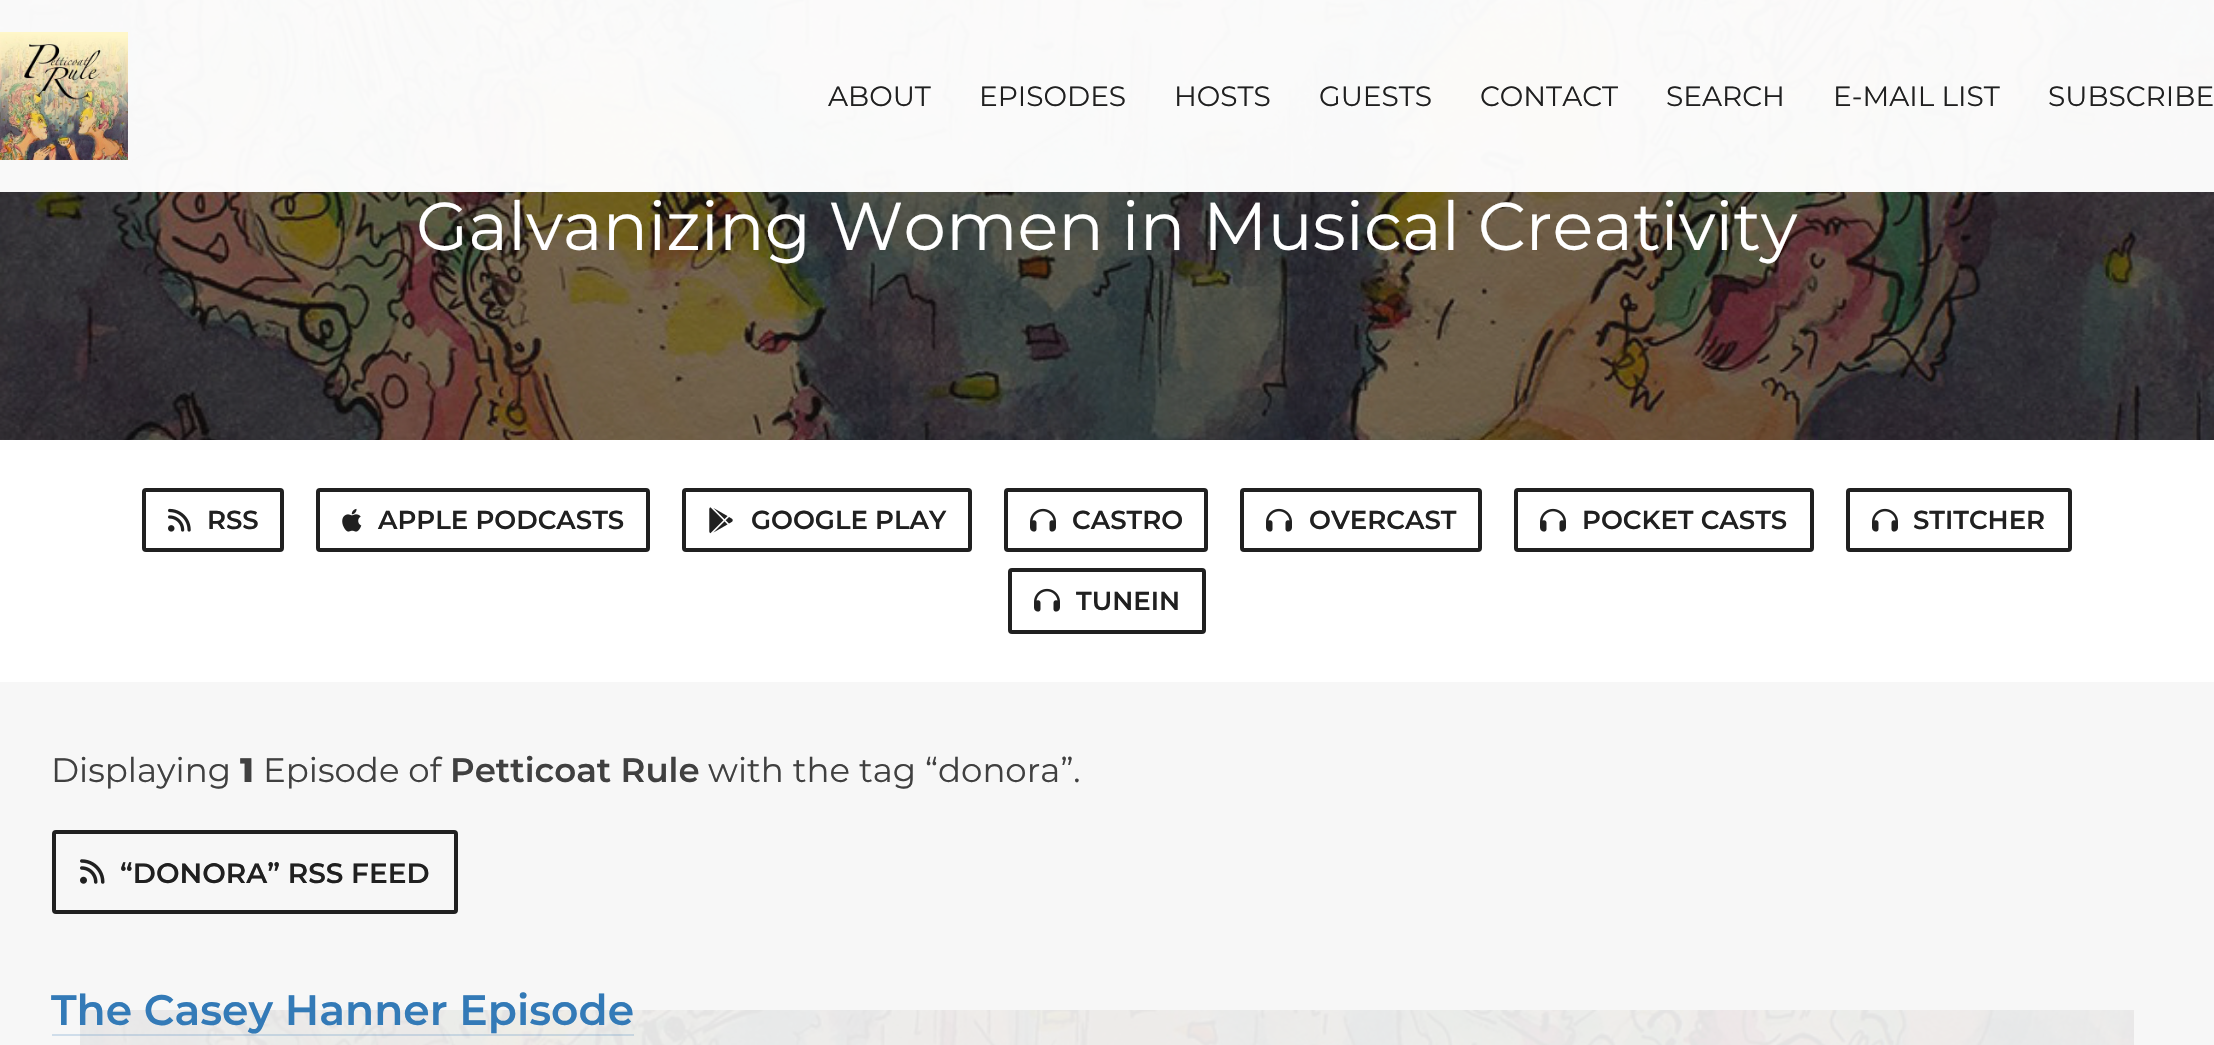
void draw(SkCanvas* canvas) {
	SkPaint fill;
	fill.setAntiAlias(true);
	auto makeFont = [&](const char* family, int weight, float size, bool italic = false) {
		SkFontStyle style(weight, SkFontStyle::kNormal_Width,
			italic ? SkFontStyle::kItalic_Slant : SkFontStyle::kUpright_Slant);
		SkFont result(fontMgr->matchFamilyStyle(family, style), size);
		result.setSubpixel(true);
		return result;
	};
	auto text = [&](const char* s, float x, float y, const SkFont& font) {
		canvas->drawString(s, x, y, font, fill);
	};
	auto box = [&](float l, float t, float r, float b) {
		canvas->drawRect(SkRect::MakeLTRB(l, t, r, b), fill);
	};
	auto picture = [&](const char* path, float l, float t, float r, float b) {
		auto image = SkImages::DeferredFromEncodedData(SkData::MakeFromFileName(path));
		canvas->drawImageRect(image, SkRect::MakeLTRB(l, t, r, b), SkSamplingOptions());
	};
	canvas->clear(0xFFF7F7F7);
	picture("image1.png", 0, 0, 2214, 440);
	fill.setColor(0xF7FFFFFF);
	box(0, 0, 2214, 192);
	picture("image0.png", 0, 32, 128, 160);
	fill.setColor(0xFFFFFFFF);
	box(0, 440, 2214, 682);
	fill.setStyle(SkPaint::kStroke_Style);
	fill.setStrokeWidth(4);
	fill.setColor(0xFF202020);
	canvas->drawRoundRect(SkRect::MakeLTRB(144, 490, 282, 550), 2, 2, fill);
	picture("image2.png", 168, 508, 191, 532);
	canvas->drawRoundRect(SkRect::MakeLTRB(318, 490, 648, 550), 2, 2, fill);
	picture("image3.png", 342, 508, 362, 532);
	canvas->drawRoundRect(SkRect::MakeLTRB(684, 490, 970, 550), 2, 2, fill);
	picture("image4.png", 709, 507, 733, 534);
	canvas->drawRoundRect(SkRect::MakeLTRB(1006, 490, 1206, 550), 2, 2, fill);
	picture("image5.png", 1030, 508, 1056, 532);
	canvas->drawRoundRect(SkRect::MakeLTRB(1242, 490, 1480, 550), 2, 2, fill);
	picture("image5.png", 1266, 508, 1292, 532);
	canvas->drawRoundRect(SkRect::MakeLTRB(1516, 490, 1812, 550), 2, 2, fill);
	picture("image5.png", 1540, 508, 1566, 532);
	canvas->drawRoundRect(SkRect::MakeLTRB(1848, 490, 2070, 550), 2, 2, fill);
	picture("image5.png", 1872, 508, 1898, 532);
	canvas->drawRoundRect(SkRect::MakeLTRB(1010, 570, 1204, 632), 2, 2, fill);
	picture("image5.png", 1034, 588, 1060, 612);
	canvas->drawRoundRect(SkRect::MakeLTRB(54, 832, 456, 912), 2, 2, fill);
	picture("image6.png", 80, 859, 105, 884);
	picture("image7.png", 80, 1010, 2134, 1045);
	fill.setStyle(SkPaint::kFill_Style);
	fill.setColor(0x33337AB7);
	box(52, 1034, 634, 1036);
	auto font1 = makeFont("Montserrat", 400, 28);
	fill.setColor(0xFF202020);
	text("ABOUT", 828, 106, font1);
	text("EPISODES", 979, 106, font1);
	text("HOSTS", 1174, 106, font1);
	text("GUESTS", 1319, 106, font1);
	text("CONTACT", 1480, 106, font1);
	text("SEARCH", 1666, 106, font1);
	text("E-MAIL LIST", 1833, 106, font1);
	text("SUBSCRIBE", 2048, 106, font1);
	auto font2 = makeFont("Montserrat", 400, 67.5f);
	fill.setColor(0xFFFFFFFF);
	text("Galvanizing Women in Musical Creativity", 416, 250, font2);
	auto font3 = makeFont("Montserrat", 600, 26);
	fill.setColor(0xFF202020);
	text("RSS", 207, 529, font3);
	text("APPLE PODCASTS", 378, 529, font3);
	text("GOOGLE PLAY", 751, 529, font3);
	text("CASTRO", 1072, 529, font3);
	text("OVERCAST", 1309, 529, font3);
	text("POCKET CASTS", 1582, 529, font3);
	text("STITCHER", 1913, 529, font3);
	text("TUNEIN", 1076, 610, font3);
	auto font4 = makeFont("Montserrat", 400, 34);
	fill.setColor(0xFF404040);
	text("Displaying", 51, 782, font4);
	auto font5 = makeFont("Montserrat", 800, 34);
	text("1", 240, 782, font5);
	text("Episode of", 263, 782, font4);
	auto font6 = makeFont("Montserrat", 600, 34);
	text("Petticoat Rule", 450, 782, font6);
	text("with the tag “donora”.", 708, 782, font4);
	auto font7 = makeFont("Montserrat", 600, 28);
	fill.setColor(0xFF202020);
	text("“DONORA” RSS FEED", 120, 883, font7);
	auto font8 = makeFont("Montserrat", 600, 42.5f);
	fill.setColor(0xFF337AB7);
	text("The Casey Hanner Episode", 51, 1025, font8);
}
